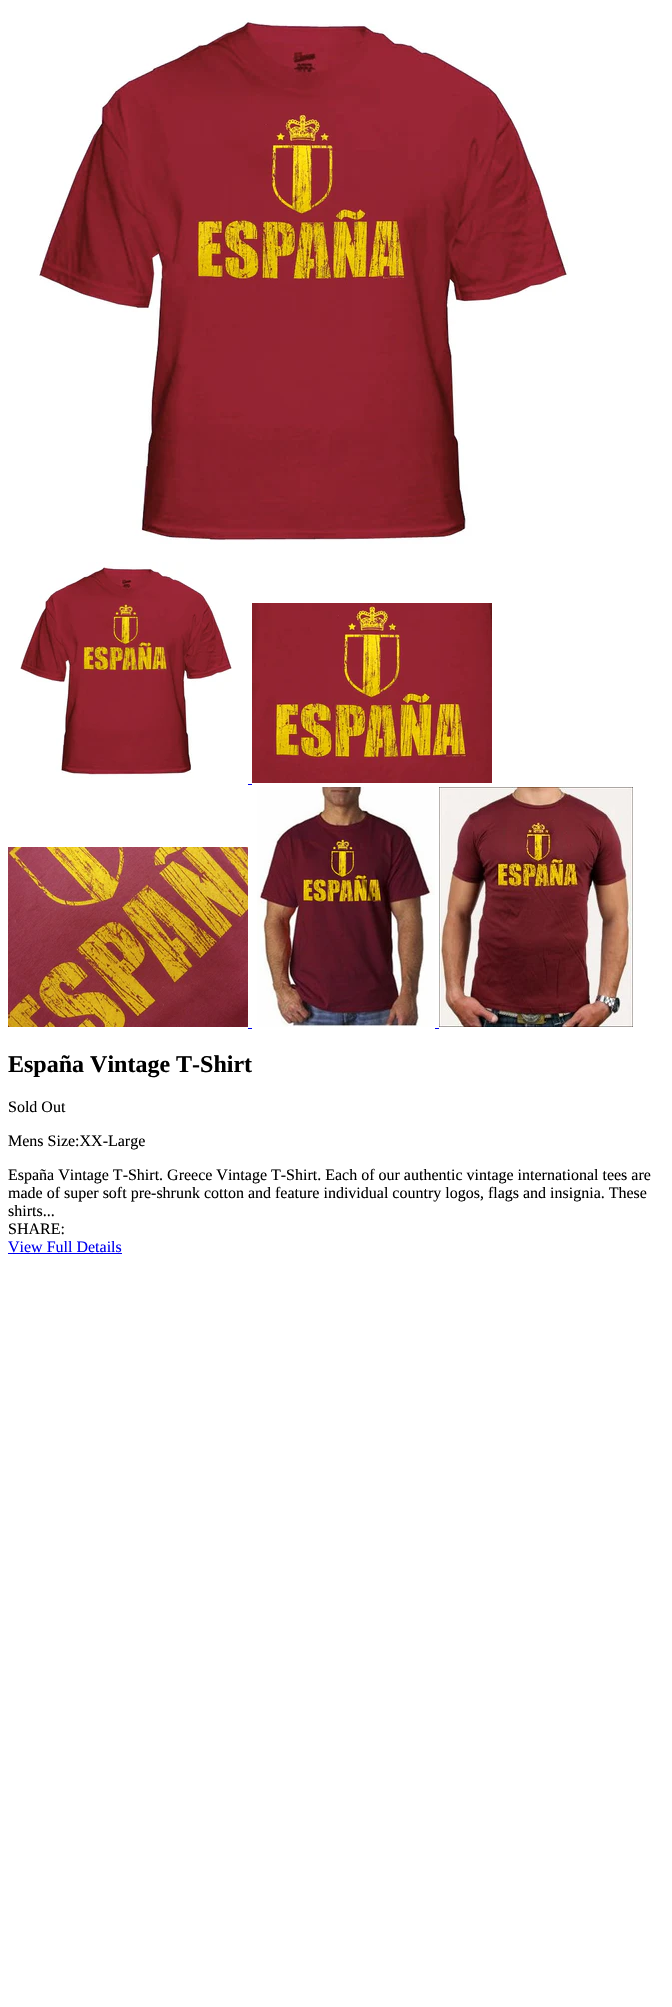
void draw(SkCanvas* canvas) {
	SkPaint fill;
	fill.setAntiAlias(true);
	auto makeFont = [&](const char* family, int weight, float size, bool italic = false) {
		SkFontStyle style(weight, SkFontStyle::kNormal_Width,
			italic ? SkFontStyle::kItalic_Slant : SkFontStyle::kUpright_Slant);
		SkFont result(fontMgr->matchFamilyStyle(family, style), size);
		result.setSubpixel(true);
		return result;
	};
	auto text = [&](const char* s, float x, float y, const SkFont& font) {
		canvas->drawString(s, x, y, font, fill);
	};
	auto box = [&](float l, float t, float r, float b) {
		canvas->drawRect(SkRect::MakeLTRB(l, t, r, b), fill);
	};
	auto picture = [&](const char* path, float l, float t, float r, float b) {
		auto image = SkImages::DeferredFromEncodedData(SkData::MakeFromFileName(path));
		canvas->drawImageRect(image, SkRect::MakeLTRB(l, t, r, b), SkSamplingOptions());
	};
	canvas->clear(0xFFFFFFFF);
	picture("image0.png", 37, 18, 568, 544);
	picture("image1.png", 20, 562, 232, 778);
	picture("image2.png", 252, 603, 492, 783);
	fill.setColor(0xFF0000EE);
	box(248, 784, 252, 785);
	picture("image3.png", 8, 847, 248, 1027);
	picture("image4.png", 257, 787, 435, 1027);
	picture("image5.png", 439, 787, 633, 1027);
	box(248, 1028, 252, 1029);
	box(435, 1028, 439, 1029);
	box(8, 1253, 122, 1254);
	auto font1 = makeFont("Liberation Serif", 700, 24);
	fill.setColor(0xFF000000);
	text("España Vintage T-Shirt", 8, 1072, font1);
	auto font2 = makeFont("Liberation Serif", 400, 16);
	text("Sold Out", 8, 1112, font2);
	text("Mens Size:XX-Large", 8, 1146, font2);
	text("España Vintage T-Shirt. Greece Vintage T-Shirt. Each of our authentic vintage international tees are", 8, 1180, font2);
	text("made of super soft pre-shrunk cotton and feature individual country logos, flags and insignia. These", 8, 1198, font2);
	text("shirts...", 8, 1216, font2);
	text("SHARE:", 8, 1234, font2);
	fill.setColor(0xFF0000EE);
	text("View Full Details", 8, 1252, font2);
}
